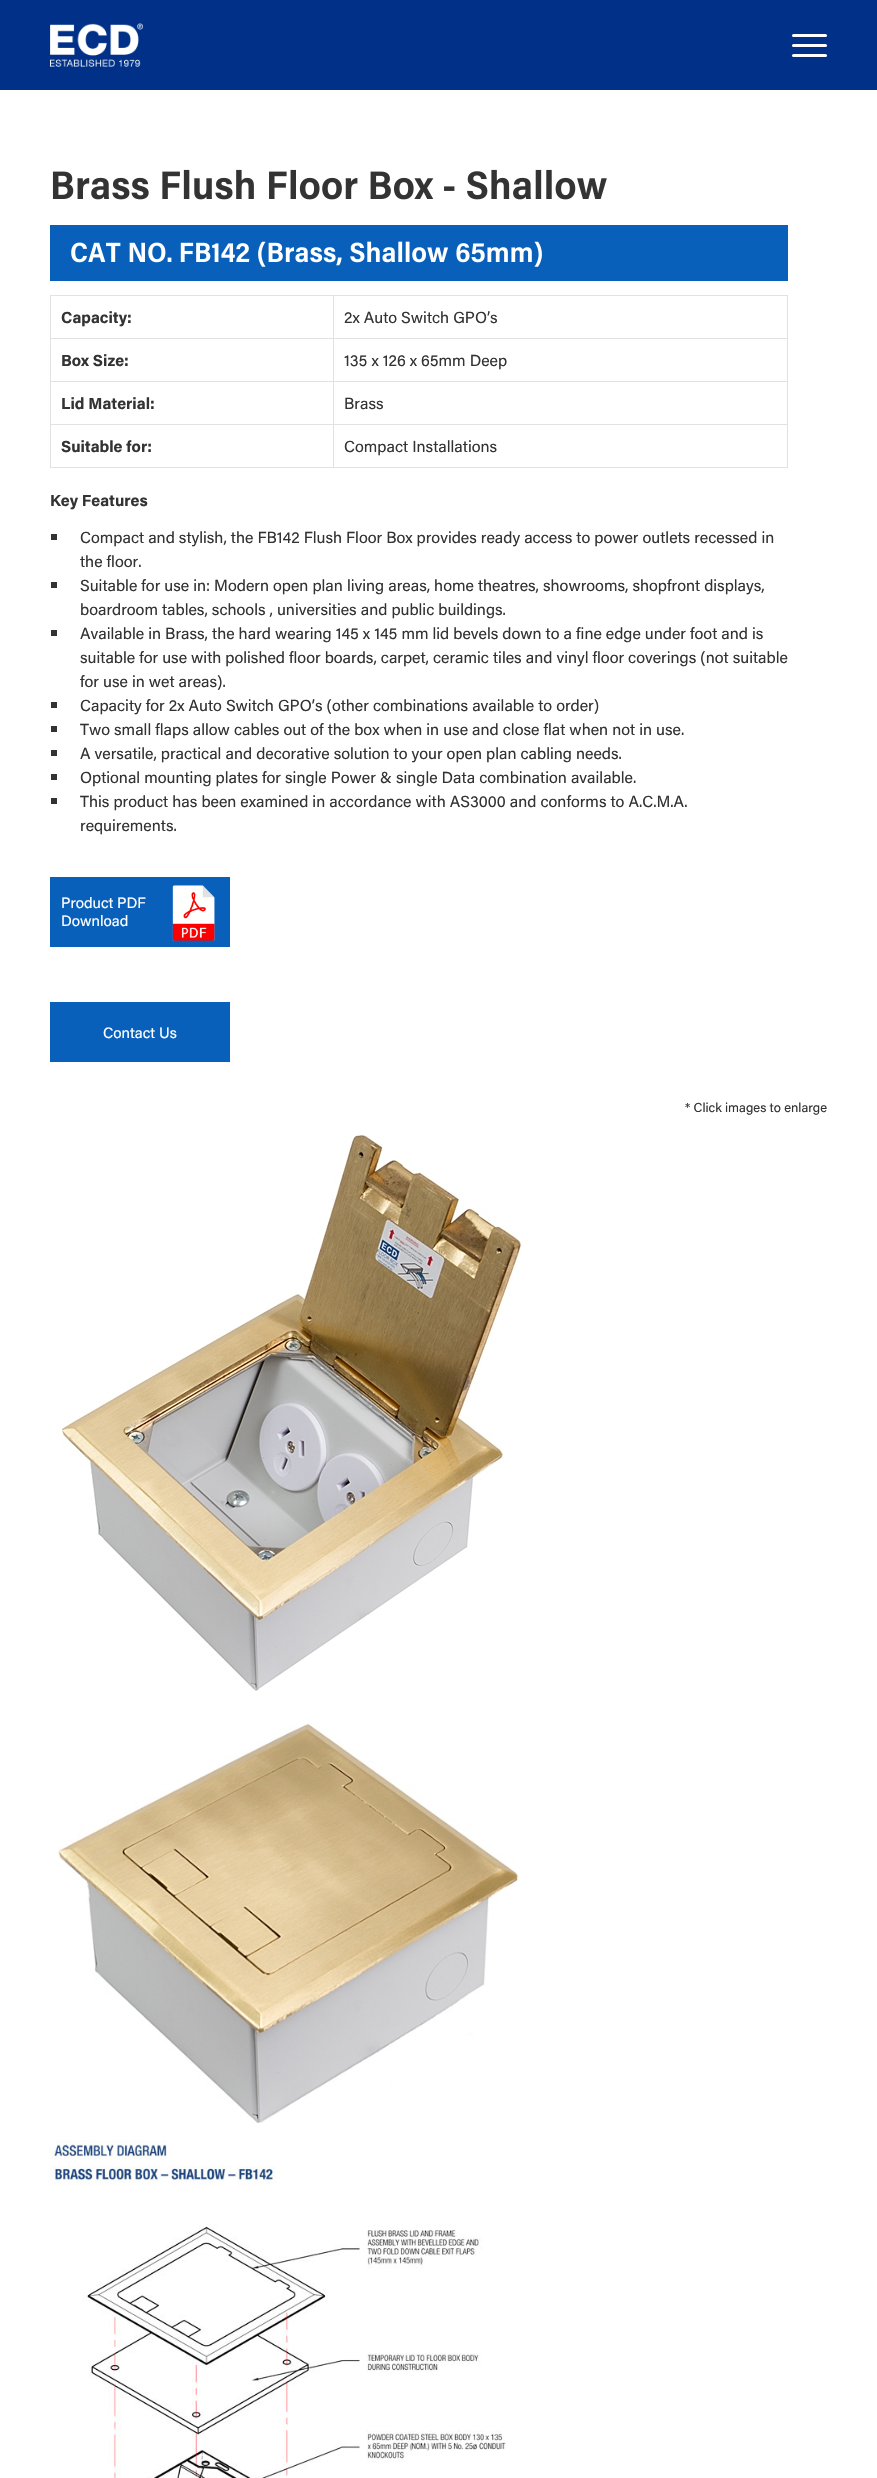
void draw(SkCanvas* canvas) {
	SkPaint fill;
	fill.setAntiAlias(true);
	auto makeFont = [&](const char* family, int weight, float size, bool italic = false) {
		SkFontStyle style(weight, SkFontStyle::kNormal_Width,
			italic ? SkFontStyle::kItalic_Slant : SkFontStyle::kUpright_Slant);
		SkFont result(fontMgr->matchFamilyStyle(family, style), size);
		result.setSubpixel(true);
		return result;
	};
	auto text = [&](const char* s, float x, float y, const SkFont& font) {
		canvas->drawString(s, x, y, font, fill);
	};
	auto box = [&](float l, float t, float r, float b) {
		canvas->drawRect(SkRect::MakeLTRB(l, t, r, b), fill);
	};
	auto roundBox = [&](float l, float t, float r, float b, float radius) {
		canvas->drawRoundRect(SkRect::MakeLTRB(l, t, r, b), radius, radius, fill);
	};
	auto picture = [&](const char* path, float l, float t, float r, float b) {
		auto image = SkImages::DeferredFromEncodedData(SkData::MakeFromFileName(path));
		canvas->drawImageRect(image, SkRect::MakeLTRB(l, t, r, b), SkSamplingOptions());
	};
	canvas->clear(0xFFFFFFFF);
	fill.setColor(0xFF003087);
	box(0, 0, 877, 90);
	picture("image0.png", 50, 23, 143, 67);
	fill.setColor(0xFFFFFFFF);
	roundBox(792, 44, 827, 47, 1.5f);
	roundBox(792, 34, 827, 37, 1.5f);
	roundBox(792, 54, 827, 57, 1.5f);
	picture("image1.png", 52, 169, 607, 200);
	fill.setColor(0xFF0860BB);
	box(50, 225, 788, 281);
	picture("image2.png", 71, 242, 172, 263);
	picture("image3.png", 180, 241, 542, 267);
	fill.setColor(0xFFE2E2E2);
	box(333, 295, 788, 296);
	box(333, 338, 788, 339);
	box(333, 381, 788, 382);
	box(333, 424, 788, 425);
	box(787, 424, 788, 468);
	box(333, 467, 788, 468);
	box(333, 424, 334, 468);
	box(50, 424, 334, 425);
	box(333, 381, 334, 425);
	box(50, 381, 334, 382);
	box(333, 338, 334, 382);
	box(50, 338, 334, 339);
	box(333, 295, 334, 339);
	box(50, 295, 334, 296);
	box(50, 467, 334, 468);
	box(50, 424, 51, 468);
	box(50, 381, 51, 425);
	box(50, 338, 51, 382);
	box(50, 295, 51, 339);
	box(787, 381, 788, 425);
	box(787, 338, 788, 382);
	box(787, 295, 788, 339);
	fill.setColor(0xFF333333);
	box(51, 534, 57, 540);
	box(51, 582, 57, 588);
	box(51, 630, 57, 636);
	box(51, 702, 57, 708);
	box(51, 726, 57, 732);
	box(51, 750, 57, 756);
	box(51, 774, 57, 780);
	box(51, 798, 57, 804);
	fill.setColor(0xFF0860BB);
	box(50, 877, 230, 947);
	picture("image4.png", 172, 885, 215, 941);
	box(50, 1002, 230, 1062);
	picture("image5.png", 61, 1134, 522, 1691);
	picture("image6.png", 58, 1723, 519, 2123);
	picture("image7.png", 50, 2140, 506, 2478);
	auto font1 = makeFont("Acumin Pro", 700, 16);
	fill.setColor(0xFF333333);
	text("Capacity:", 61, 323, font1);
	auto font2 = makeFont("Acumin Pro", 400, 16);
	text("2x Auto Switch GPO’s", 344, 323, font2);
	text("Box Size:", 61, 366, font1);
	text("135 x 126 x 65mm Deep", 344, 366, font2);
	text("Lid Material:", 61, 409, font1);
	text("Brass", 344, 409, font2);
	text("Suitable for:", 61, 452, font1);
	text("Compact Installations", 344, 452, font2);
	text("Key Features", 50, 506, font1);
	text("Compact and stylish, the FB142 Flush Floor Box provides ready access to power outlets recessed in", 80, 543, font2);
	text("the floor.", 80, 567, font2);
	text("Suitable for use in: Modern open plan living areas, home theatres, showrooms, shopfront displays,", 80, 591, font2);
	text("boardroom tables, schools , universities and public buildings.", 80, 615, font2);
	text("Available in Brass, the hard wearing 145 x 145 mm lid bevels down to a fine edge under foot and is", 80, 639, font2);
	text("suitable for use with polished floor boards, carpet, ceramic tiles and vinyl floor coverings (not suitable", 80, 663, font2);
	text("for use in wet areas).", 80, 687, font2);
	text("Capacity for 2x Auto Switch GPO’s (other combinations available to order)", 80, 711, font2);
	text("Two small flaps allow cables out of the box when in use and close flat when not in use.", 80, 735, font2);
	text("A versatile, practical and decorative solution to your open plan cabling needs.", 80, 759, font2);
	text("Optional mounting plates for single Power & single Data combination available.", 80, 783, font2);
	text("This product has been examined in accordance with AS3000 and conforms to A.C.M.A.", 80, 807, font2);
	text("requirements.", 80, 831, font2);
	auto font3 = makeFont("Acumin Pro", 400, 15);
	fill.setColor(0xFFFFFFFF);
	text("Product PDF", 61, 908, font3);
	text("Download", 61, 926, font3);
	text("Contact Us", 103, 1038, font3);
	auto font4 = makeFont("Acumin Pro", 400, 13);
	fill.setColor(0xFF333333);
	text("* Click images to enlarge", 685, 1112, font4);
}
